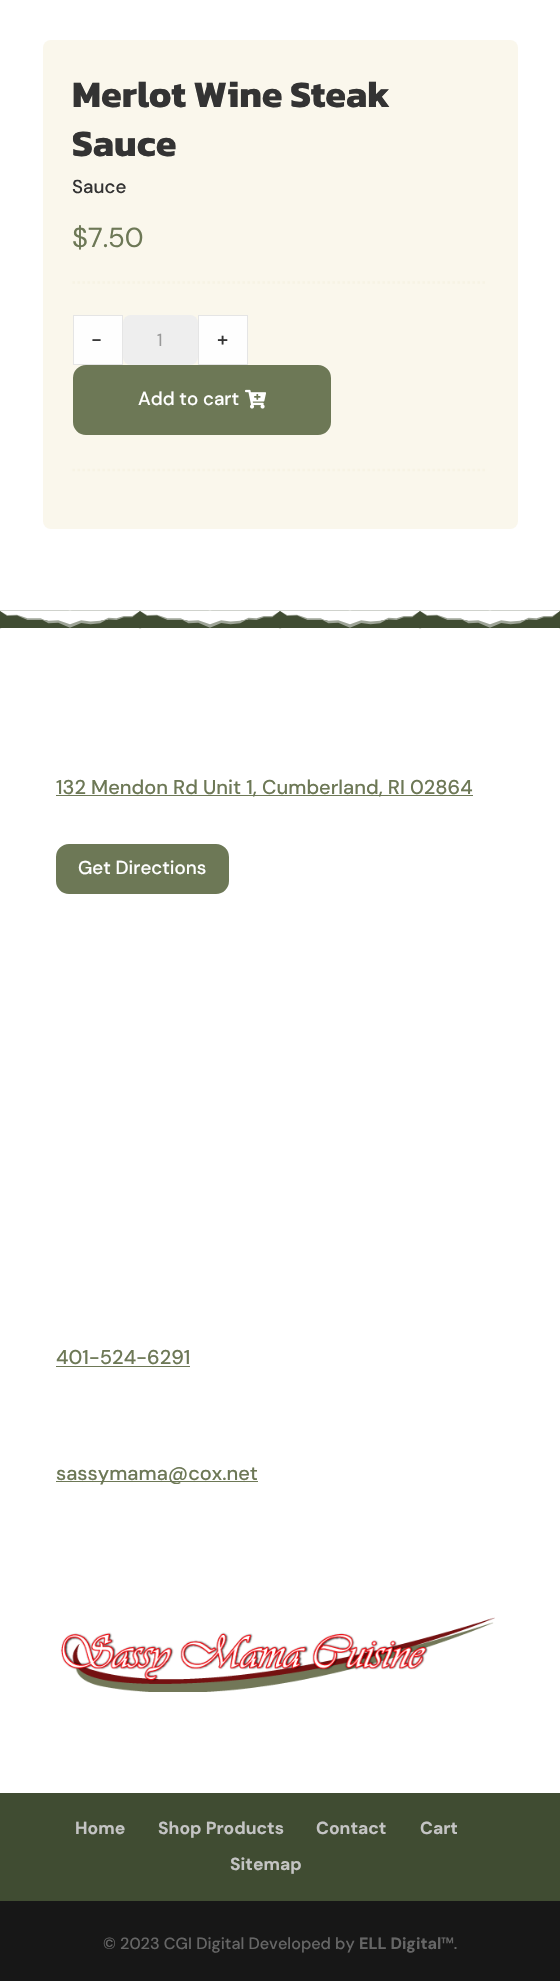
void draw(SkCanvas* canvas) {
	SkPaint fill;
	fill.setAntiAlias(true);
	auto makeFont = [&](const char* family, int weight, float size, bool italic = false) {
		SkFontStyle style(weight, SkFontStyle::kNormal_Width,
			italic ? SkFontStyle::kItalic_Slant : SkFontStyle::kUpright_Slant);
		SkFont result(fontMgr->matchFamilyStyle(family, style), size);
		result.setSubpixel(true);
		return result;
	};
	auto text = [&](const char* s, float x, float y, const SkFont& font) {
		canvas->drawString(s, x, y, font, fill);
	};
	auto box = [&](float l, float t, float r, float b) {
		canvas->drawRect(SkRect::MakeLTRB(l, t, r, b), fill);
	};
	auto roundBox = [&](float l, float t, float r, float b, float radius) {
		canvas->drawRoundRect(SkRect::MakeLTRB(l, t, r, b), radius, radius, fill);
	};
	auto picture = [&](const char* path, float l, float t, float r, float b) {
		auto image = SkImages::DeferredFromEncodedData(SkData::MakeFromFileName(path));
		canvas->drawImageRect(image, SkRect::MakeLTRB(l, t, r, b), SkSamplingOptions());
	};
	canvas->clear(0xFFFFFFFF);
	fill.setColor(0xFFFAF7EC);
	roundBox(43, 40, 518, 529, 8);
	fill.setStyle(SkPaint::kStroke_Style);
	fill.setStrokeWidth(2.5f);
	fill.setColor(0xFFF7F3E4);
	fill.setPathEffect(SkDashPathEffect::Make({{2.5f, 2.5f}}, 0));
	canvas->drawPath(SkPathBuilder().moveTo(72.5f, 282.5f).lineTo(487.5f, 282.5f).detach(), fill);
	fill.setPathEffect(nullptr);
	fill.setStyle(SkPaint::kFill_Style);
	fill.setColor(0xFFFEFEFE);
	canvas->drawRect(SkRect::MakeLTRB(73.5f, 315.5f, 122.5f, 364.5f), fill);
	fill.setStyle(SkPaint::kStroke_Style);
	fill.setStrokeWidth(1);
	fill.setColor(0xFFE5E5E5);
	canvas->drawRect(SkRect::MakeLTRB(73.5f, 315.5f, 122.5f, 364.5f), fill);
	fill.setStyle(SkPaint::kFill_Style);
	fill.setColor(0xFFEEEEEE);
	roundBox(123, 315, 198, 365, 8);
	fill.setColor(0xFFFEFEFE);
	canvas->drawRect(SkRect::MakeLTRB(198.5f, 315.5f, 247.5f, 364.5f), fill);
	fill.setStyle(SkPaint::kStroke_Style);
	fill.setColor(0xFFE5E5E5);
	canvas->drawRect(SkRect::MakeLTRB(198.5f, 315.5f, 247.5f, 364.5f), fill);
	fill.setStyle(SkPaint::kFill_Style);
	fill.setColor(0xFF6D7856);
	canvas->drawRoundRect(SkRect::MakeLTRB(75, 367, 329, 433), 11, 11, fill);
	fill.setStyle(SkPaint::kStroke_Style);
	fill.setStrokeWidth(4);
	canvas->drawRoundRect(SkRect::MakeLTRB(75, 367, 329, 433), 11, 11, fill);
	picture("image0.png", 245, 389, 266, 409);
	fill.setStrokeWidth(2.5f);
	fill.setColor(0xFFF7F3E4);
	fill.setPathEffect(SkDashPathEffect::Make({{2.5f, 2.5f}}, 0));
	canvas->drawPath(SkPathBuilder().moveTo(72.5f, 470).lineTo(487.5f, 470).detach(), fill);
	fill.setPathEffect(nullptr);
	picture("image1.png", 0, 610, 560, 629);
	fill.setStyle(SkPaint::kFill_Style);
	fill.setColor(0xFF6D7856);
	box(56, 795, 473, 796);
	canvas->drawRoundRect(SkRect::MakeLTRB(58, 846, 227, 892), 11, 11, fill);
	fill.setStyle(SkPaint::kStroke_Style);
	fill.setStrokeWidth(4);
	canvas->drawRoundRect(SkRect::MakeLTRB(58, 846, 227, 892), 11, 11, fill);
	fill.setStyle(SkPaint::kFill_Style);
	box(56, 1366, 190, 1367);
	box(56, 1481, 258, 1482);
	picture("image2.png", 60, 1617, 495, 1692);
	fill.setColor(0xFF404C32);
	box(0, 1793, 560, 1901);
	fill.setColor(0xFF171717);
	box(0, 1901, 560, 1981);
	auto font1 = makeFont("Kanit", 700, 37.5f);
	fill.setColor(0xFF333333);
	text("Merlot Wine Steak", 72, 107, font1);
	text("Sauce", 72, 156, font1);
	auto font2 = makeFont("DM Sans", 500, 18.75f);
	text("Sauce", 72, 193, font2);
	auto font3 = makeFont("DM Sans", 400, 27.5f);
	fill.setColor(0xFF6D7856);
	text("$7.50", 72, 247, font3);
	auto font4 = makeFont("DM Sans", 500, 20);
	fill.setColor(0xFF333333);
	text("-", 91, 346, font4);
	auto font5 = makeFont("DM Sans", 400, 17.5f);
	fill.setColor(0xFF999999);
	text("1", 157, 346, font5);
	fill.setColor(0xFF333333);
	text("+", 217, 346, font4);
	fill.setColor(0xFFFFFFFF);
	text("Add to cart", 138, 405, font2);
	fill.setColor(0xFF6D7856);
	text("132 Mendon Rd Unit 1, Cumberland, RI 02864", 56, 794, font4);
	fill.setColor(0xFFFFFFFF);
	text("Get Directions", 78, 874, font2);
	fill.setColor(0xFF6D7856);
	text("401-524-6291", 56, 1364, font4);
	text("sassymama@cox.net", 56, 1480, font4);
	auto font6 = makeFont("DM Sans", 700, 17.5f);
	fill.setColor(0xFFC4C4C4);
	text("Home", 75, 1834, font6);
	text("Shop Products", 158, 1834, font6);
	text("Contact", 316, 1834, font6);
	text("Cart", 420, 1834, font6);
	text("Sitemap", 230, 1870, font6);
	auto font7 = makeFont("DM Sans", 500, 16.25f);
	fill.setColor(0xFF666666);
	text("© 2023 CGI Digital Developed by", 103, 1949, font7);
	auto font8 = makeFont("DM Sans", 700, 16.25f);
	text("ELL Digital", 359, 1949, font8);
	text("™.", 441, 1949, font7);
}
